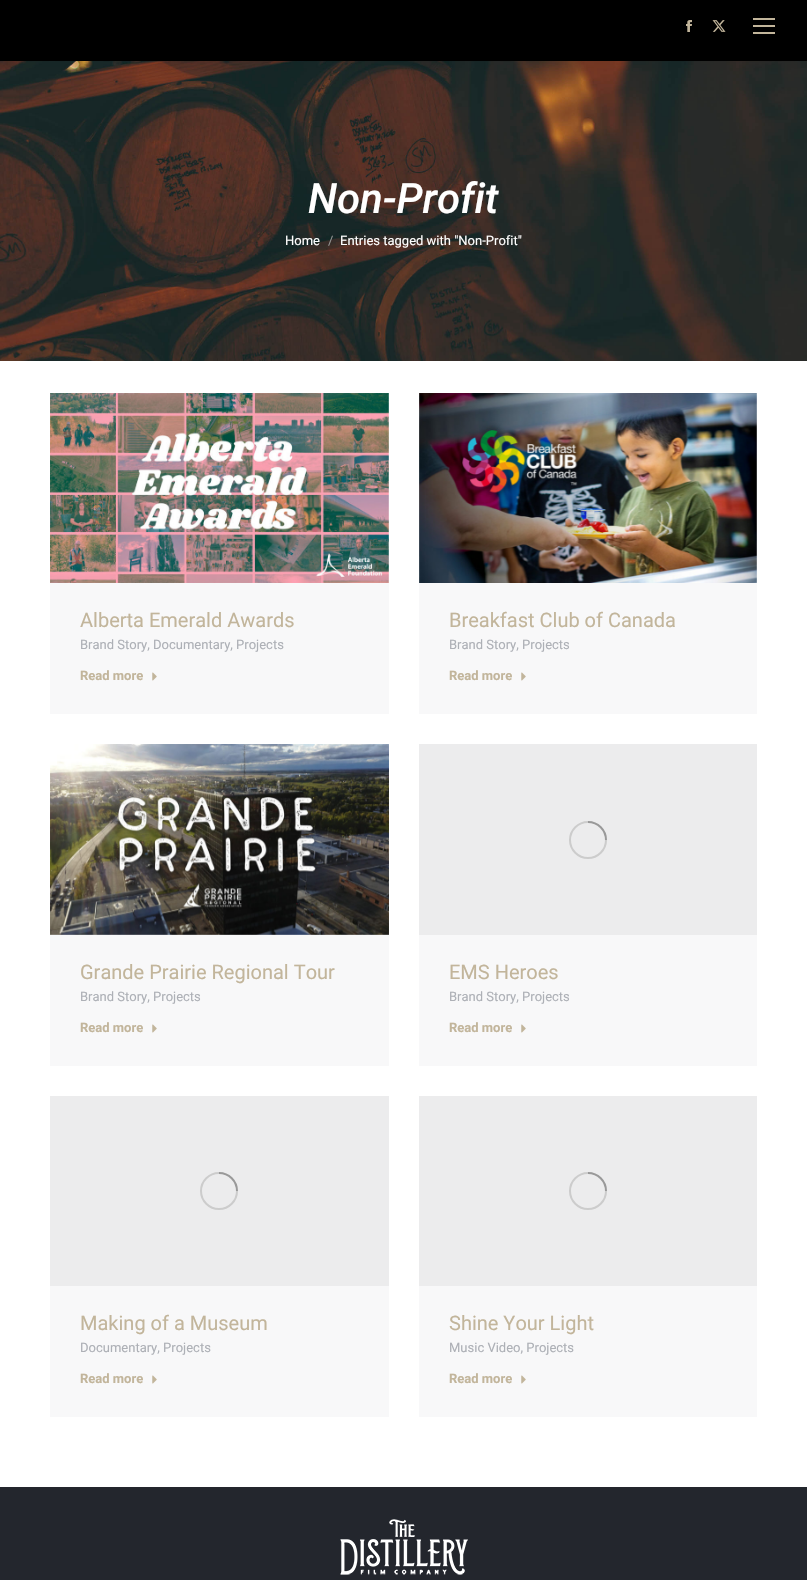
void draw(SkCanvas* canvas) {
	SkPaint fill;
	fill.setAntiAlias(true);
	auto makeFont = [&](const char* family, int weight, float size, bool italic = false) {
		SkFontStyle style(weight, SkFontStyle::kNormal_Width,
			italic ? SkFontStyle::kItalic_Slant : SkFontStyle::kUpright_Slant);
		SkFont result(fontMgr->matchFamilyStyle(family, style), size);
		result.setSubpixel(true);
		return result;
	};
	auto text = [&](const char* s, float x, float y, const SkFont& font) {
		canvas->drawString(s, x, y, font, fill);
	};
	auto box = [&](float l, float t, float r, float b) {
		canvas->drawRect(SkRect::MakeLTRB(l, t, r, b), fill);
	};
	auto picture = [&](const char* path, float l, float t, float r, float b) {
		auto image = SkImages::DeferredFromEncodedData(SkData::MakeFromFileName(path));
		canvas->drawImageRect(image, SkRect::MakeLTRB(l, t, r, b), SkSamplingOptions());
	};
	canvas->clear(0xFFFFFFFF);
	picture("image2.png", 0, 61, 807, 361);
	fill.setColor(0x12000000);
	fill.setMaskFilter(SkMaskFilter::MakeBlur(kNormal_SkBlurStyle, 7.5f));
	canvas->drawRect(SkRect::MakeLTRB(-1, -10, 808, 62), fill);
	fill.setMaskFilter(nullptr);
	fill.setColor(0xFF000000);
	box(0, 0, 807, 61);
	picture("image0.png", 686, 20, 692, 32);
	picture("image1.png", 712, 20, 726, 32);
	fill.setColor(0xFFC2B59B);
	box(753, 18, 775, 20);
	box(753, 25, 775, 27);
	box(753, 32, 775, 34);
	fill.setColor(0xFFF8F8F9);
	box(50, 393, 389, 714);
	picture("image3.png", 50, 393, 389, 583);
	picture("image4.png", 152, 672, 157, 681);
	box(419, 393, 757, 714);
	picture("image5.png", 419, 393, 757, 583);
	picture("image4.png", 521, 672, 526, 681);
	box(50, 934, 389, 1066);
	picture("image6.png", 50, 744, 389, 935);
	picture("image4.png", 152, 1024, 157, 1033);
	box(419, 935, 757, 1066);
	fill.setColor(0xFFECECED);
	box(419, 744, 757, 935);
	fill.setStyle(SkPaint::kStroke_Style);
	fill.setStrokeWidth(2);
	fill.setColor(0xFFCCCCCC);
	canvas->drawCircle(588, 840, 18, fill);
	fill.setColor(0x40000000);
	canvas->drawPath(SkPathBuilder().moveTo(606, 840).cubicTo(606, 830, 598, 822, 588, 822).detach(), fill);
	picture("image4.png", 521, 1024, 526, 1033);
	fill.setStyle(SkPaint::kFill_Style);
	fill.setColor(0xFFF8F8F9);
	box(50, 1286, 389, 1417);
	fill.setColor(0xFFECECED);
	box(50, 1096, 389, 1286);
	fill.setStyle(SkPaint::kStroke_Style);
	fill.setColor(0xFFCCCCCC);
	canvas->drawCircle(219, 1191, 18, fill);
	fill.setColor(0x40000000);
	canvas->drawPath(SkPathBuilder().moveTo(237, 1191).cubicTo(237, 1181, 229, 1173, 219, 1173).detach(), fill);
	picture("image4.png", 152, 1375, 157, 1384);
	fill.setStyle(SkPaint::kFill_Style);
	fill.setColor(0xFFF8F8F9);
	box(419, 1286, 757, 1417);
	fill.setColor(0xFFECECED);
	box(419, 1096, 757, 1286);
	fill.setStyle(SkPaint::kStroke_Style);
	fill.setColor(0xFFCCCCCC);
	canvas->drawCircle(588, 1191, 18, fill);
	fill.setColor(0x40000000);
	canvas->drawPath(SkPathBuilder().moveTo(606, 1191).cubicTo(606, 1181, 598, 1173, 588, 1173).detach(), fill);
	picture("image4.png", 521, 1375, 526, 1384);
	fill.setStyle(SkPaint::kFill_Style);
	fill.setColor(0xFF23262D);
	box(0, 1487, 807, 1580);
	picture("image7.png", 340, 1519, 468, 1575);
	auto font1 = makeFont("Roboto", 500, 42, true);
	fill.setColor(0xFFFFFFFF);
	text("Non-Profit", 308, 213, font1);
	auto font2 = makeFont("Roboto", 400, 13);
	text("Home", 285, 245, font2);
	fill.setColor(0xFF949593);
	text("/", 328, 245, font2);
	fill.setColor(0xFFFFFFFF);
	text("Entries tagged with \"Non-Profit\"", 340, 245, font2);
	auto font3 = makeFont("Roboto", 400, 20);
	fill.setColor(0xFFC2B59B);
	text("Alberta Emerald Awards", 80, 627, font3);
	fill.setColor(0xFFADB0B6);
	text("Brand Story, Documentary, Projects", 80, 649, font2);
	auto font4 = makeFont("Roboto", 700, 13);
	fill.setColor(0xFFC2B59B);
	text("Read more", 80, 680, font4);
	text("Breakfast Club of Canada", 449, 627, font3);
	fill.setColor(0xFFADB0B6);
	text("Brand Story, Projects", 449, 649, font2);
	fill.setColor(0xFFC2B59B);
	text("Read more", 449, 680, font4);
	text("Grande Prairie Regional Tour", 80, 979, font3);
	fill.setColor(0xFFADB0B6);
	text("Brand Story, Projects", 80, 1001, font2);
	fill.setColor(0xFFC2B59B);
	text("Read more", 80, 1032, font4);
	text("EMS Heroes", 449, 979, font3);
	fill.setColor(0xFFADB0B6);
	text("Brand Story, Projects", 449, 1001, font2);
	fill.setColor(0xFFC2B59B);
	text("Read more", 449, 1032, font4);
	text("Making of a Museum", 80, 1330, font3);
	fill.setColor(0xFFADB0B6);
	text("Documentary, Projects", 80, 1352, font2);
	fill.setColor(0xFFC2B59B);
	text("Read more", 80, 1383, font4);
	text("Shine Your Light", 449, 1330, font3);
	fill.setColor(0xFFADB0B6);
	text("Music Video, Projects", 449, 1352, font2);
	fill.setColor(0xFFC2B59B);
	text("Read more", 449, 1383, font4);
}
